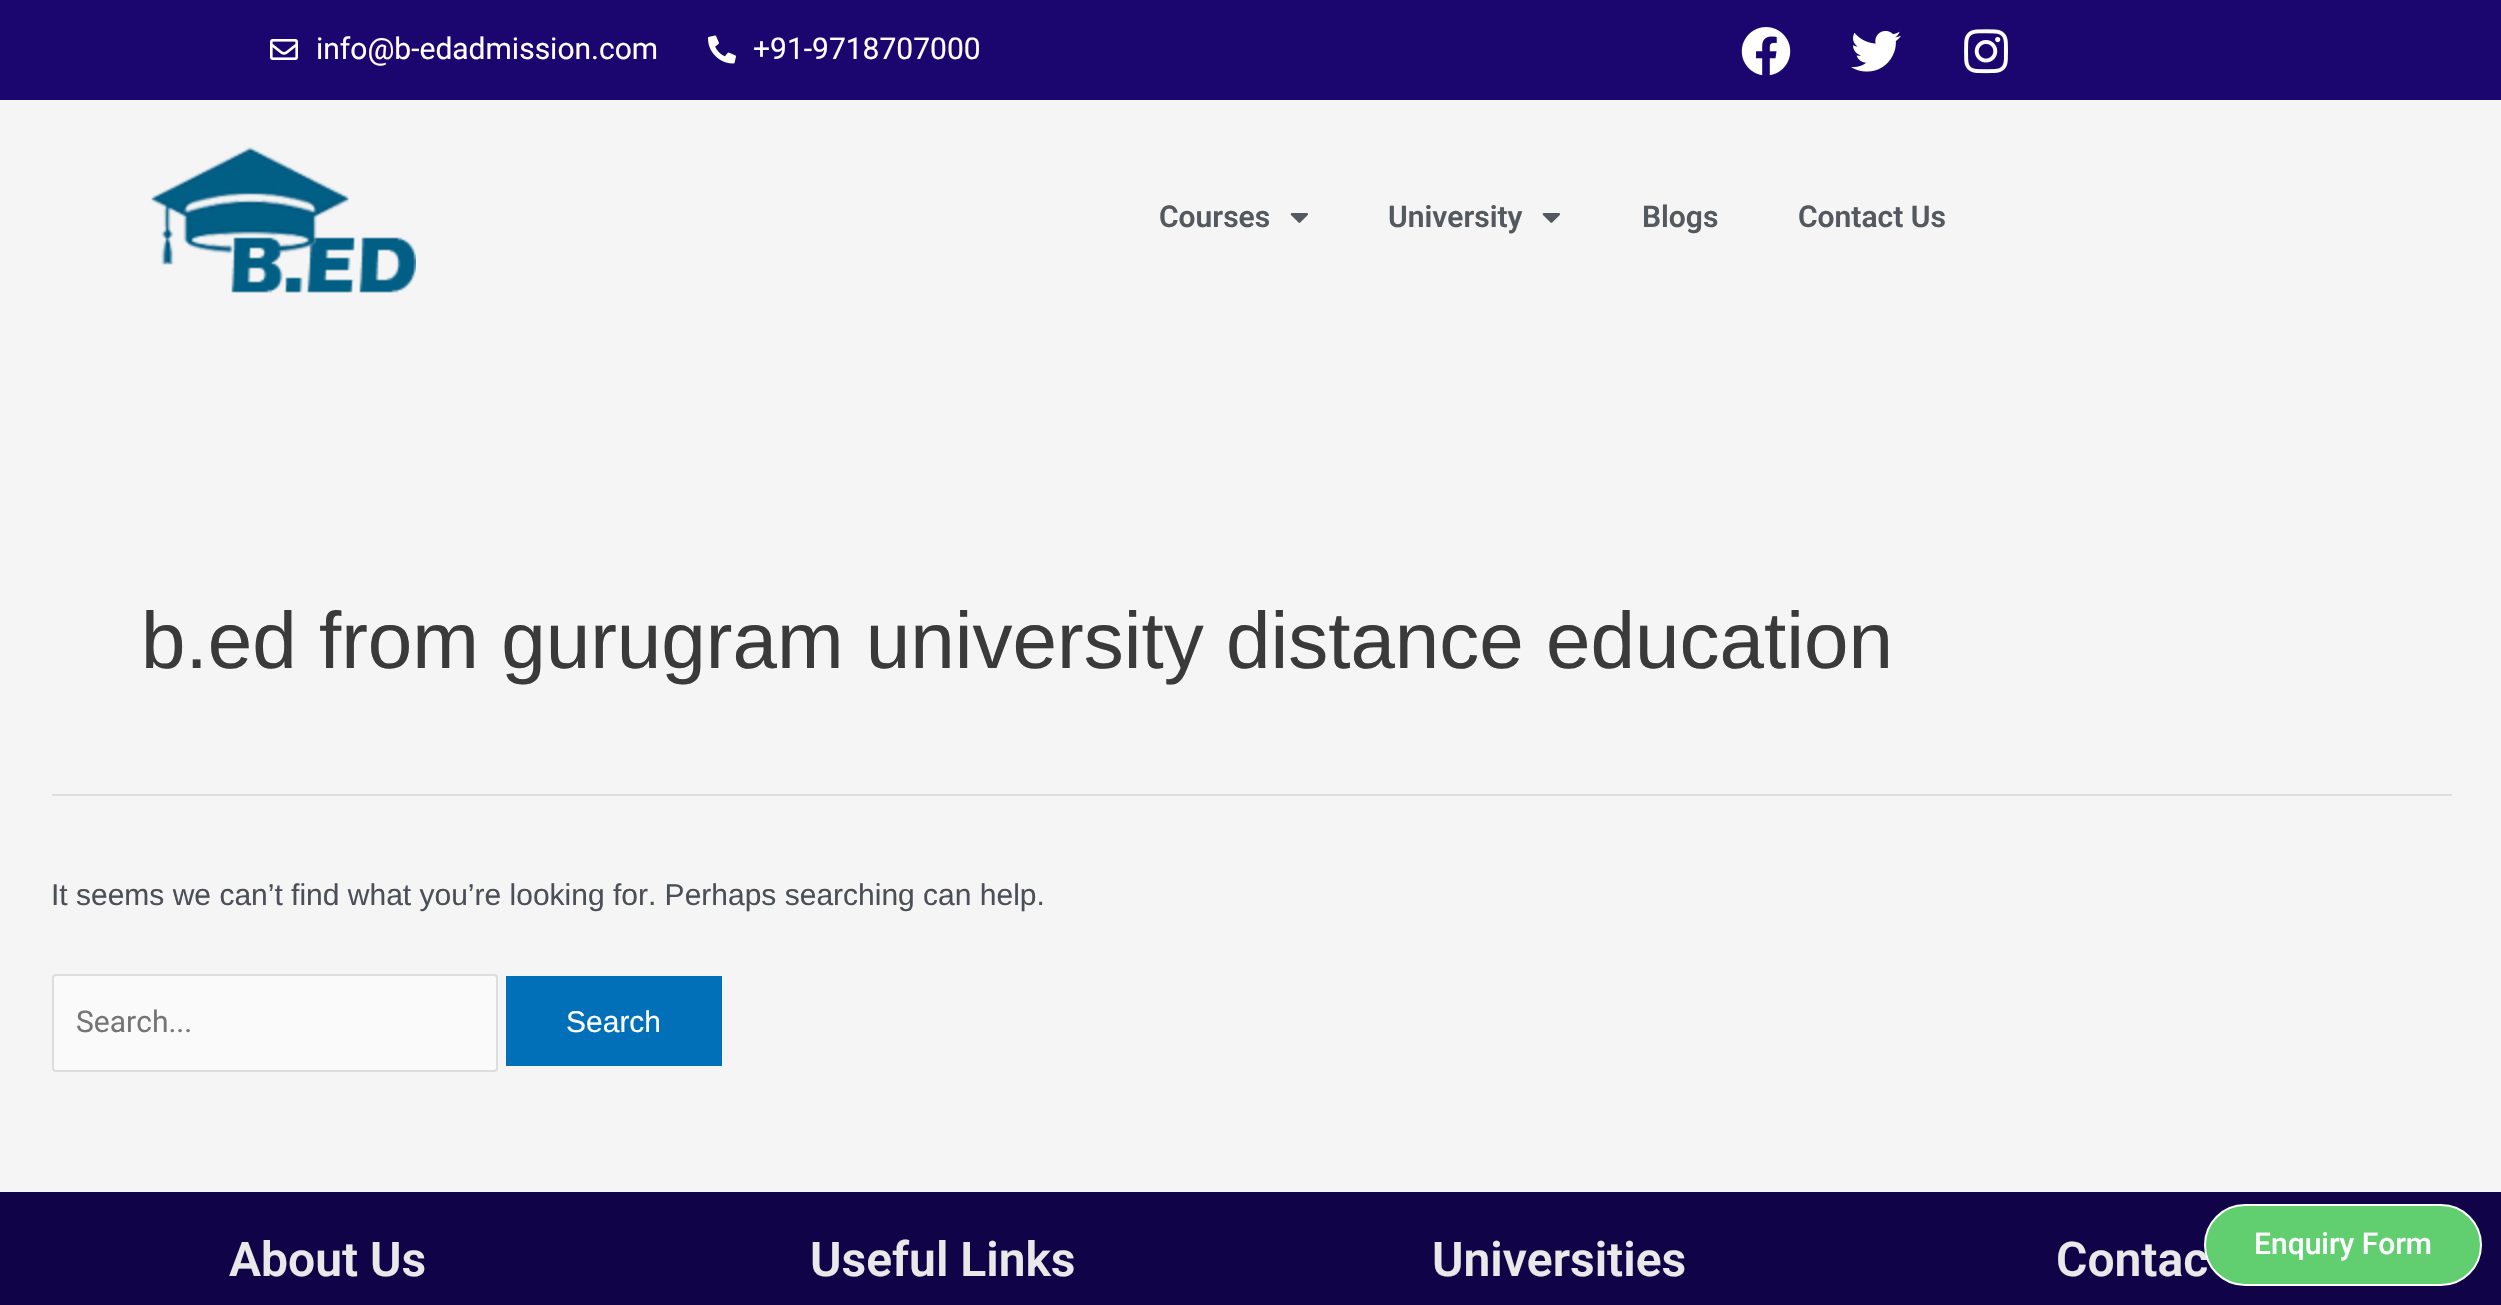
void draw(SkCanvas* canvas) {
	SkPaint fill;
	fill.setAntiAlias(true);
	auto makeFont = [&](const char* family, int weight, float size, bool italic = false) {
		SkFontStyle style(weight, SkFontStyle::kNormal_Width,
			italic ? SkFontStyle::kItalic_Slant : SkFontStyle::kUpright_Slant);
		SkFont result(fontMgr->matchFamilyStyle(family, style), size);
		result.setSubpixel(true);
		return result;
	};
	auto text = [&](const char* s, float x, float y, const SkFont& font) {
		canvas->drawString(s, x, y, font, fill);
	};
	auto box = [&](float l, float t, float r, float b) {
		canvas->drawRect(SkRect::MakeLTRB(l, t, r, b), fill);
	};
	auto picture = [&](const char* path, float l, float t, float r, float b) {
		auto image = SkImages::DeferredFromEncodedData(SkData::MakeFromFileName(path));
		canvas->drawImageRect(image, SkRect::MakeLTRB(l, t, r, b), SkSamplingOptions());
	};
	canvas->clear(0xFFF5F5F5);
	fill.setColor(0xFF1A066E);
	box(0, 0, 2501, 100);
	picture("image0.png", 270, 39, 298, 60);
	picture("image1.png", 708, 35, 736, 64);
	picture("image2.png", 1741, 27, 1791, 76);
	picture("image3.png", 1851, 30, 1901, 72);
	picture("image4.png", 1964, 29, 2008, 74);
	picture("image5.png", 151, 147, 416, 293);
	picture("image6.png", 1290, 213, 1308, 223);
	picture("image6.png", 1542, 213, 1560, 223);
	fill.setColor(0xFFDDDDDD);
	box(52, 794, 2452, 796);
	fill.setColor(0xFFFAFAFA);
	canvas->drawRoundRect(SkRect::MakeLTRB(53, 975, 497, 1071), 3, 3, fill);
	fill.setStyle(SkPaint::kStroke_Style);
	fill.setStrokeWidth(2);
	fill.setColor(0xFFDDDDDD);
	canvas->drawRoundRect(SkRect::MakeLTRB(53, 975, 497, 1071), 3, 3, fill);
	fill.setStyle(SkPaint::kFill_Style);
	fill.setColor(0xFF0170B9);
	box(506, 976, 722, 1066);
	fill.setColor(0xFF100348);
	box(0, 1192, 2501, 1305);
	auto font1 = makeFont("Roboto", 400, 30);
	fill.setColor(0xFFFFFFFF);
	text("info@b-edadmission.com", 316, 59, font1);
	text("+91-9718707000", 753, 59, font1);
	auto font2 = makeFont("Roboto", 600, 30);
	fill.setColor(0xFF54595F);
	text("Courses", 1159, 227, font2);
	text("University", 1388, 227, font2);
	text("Blogs", 1642, 227, font2);
	text("Contact Us", 1798, 227, font2);
	auto font3 = makeFont("Liberation Sans", 400, 80);
	fill.setColor(0xFF3A3A3A);
	text("b.ed from gurugram university distance education", 141, 668, font3);
	auto font4 = makeFont("Liberation Sans", 400, 30);
	fill.setColor(0xFF4B4F58);
	text("It seems we can’t find what you’re looking for. Perhaps searching can help.", 51, 905, font4);
	fill.setColor(0xFF757575);
	text("Search...", 76, 1032, font1);
	fill.setColor(0xFFFFFFFF);
	text("Search", 566, 1032, font4);
	auto font5 = makeFont("Roboto", 600, 48);
	fill.setColor(0xFFE9E9E9);
	text("About Us", 229, 1276, font5);
	text("Useful Links", 810, 1276, font5);
	text("Universities", 1432, 1276, font5);
	text("Contac", 2056, 1276, font5);
	fill.setColor(0xFF61CE70);
	canvas->drawRoundRect(SkRect::MakeLTRB(2205, 1205, 2481, 1285), 40, 40, fill);
	fill.setStyle(SkPaint::kStroke_Style);
	fill.setColor(0xFFFFFFFF);
	canvas->drawRoundRect(SkRect::MakeLTRB(2205, 1205, 2481, 1285), 40, 40, fill);
	auto font6 = makeFont("Roboto", 500, 30);
	fill.setStyle(SkPaint::kFill_Style);
	text("Enquiry Form", 2254, 1254, font6);
}
